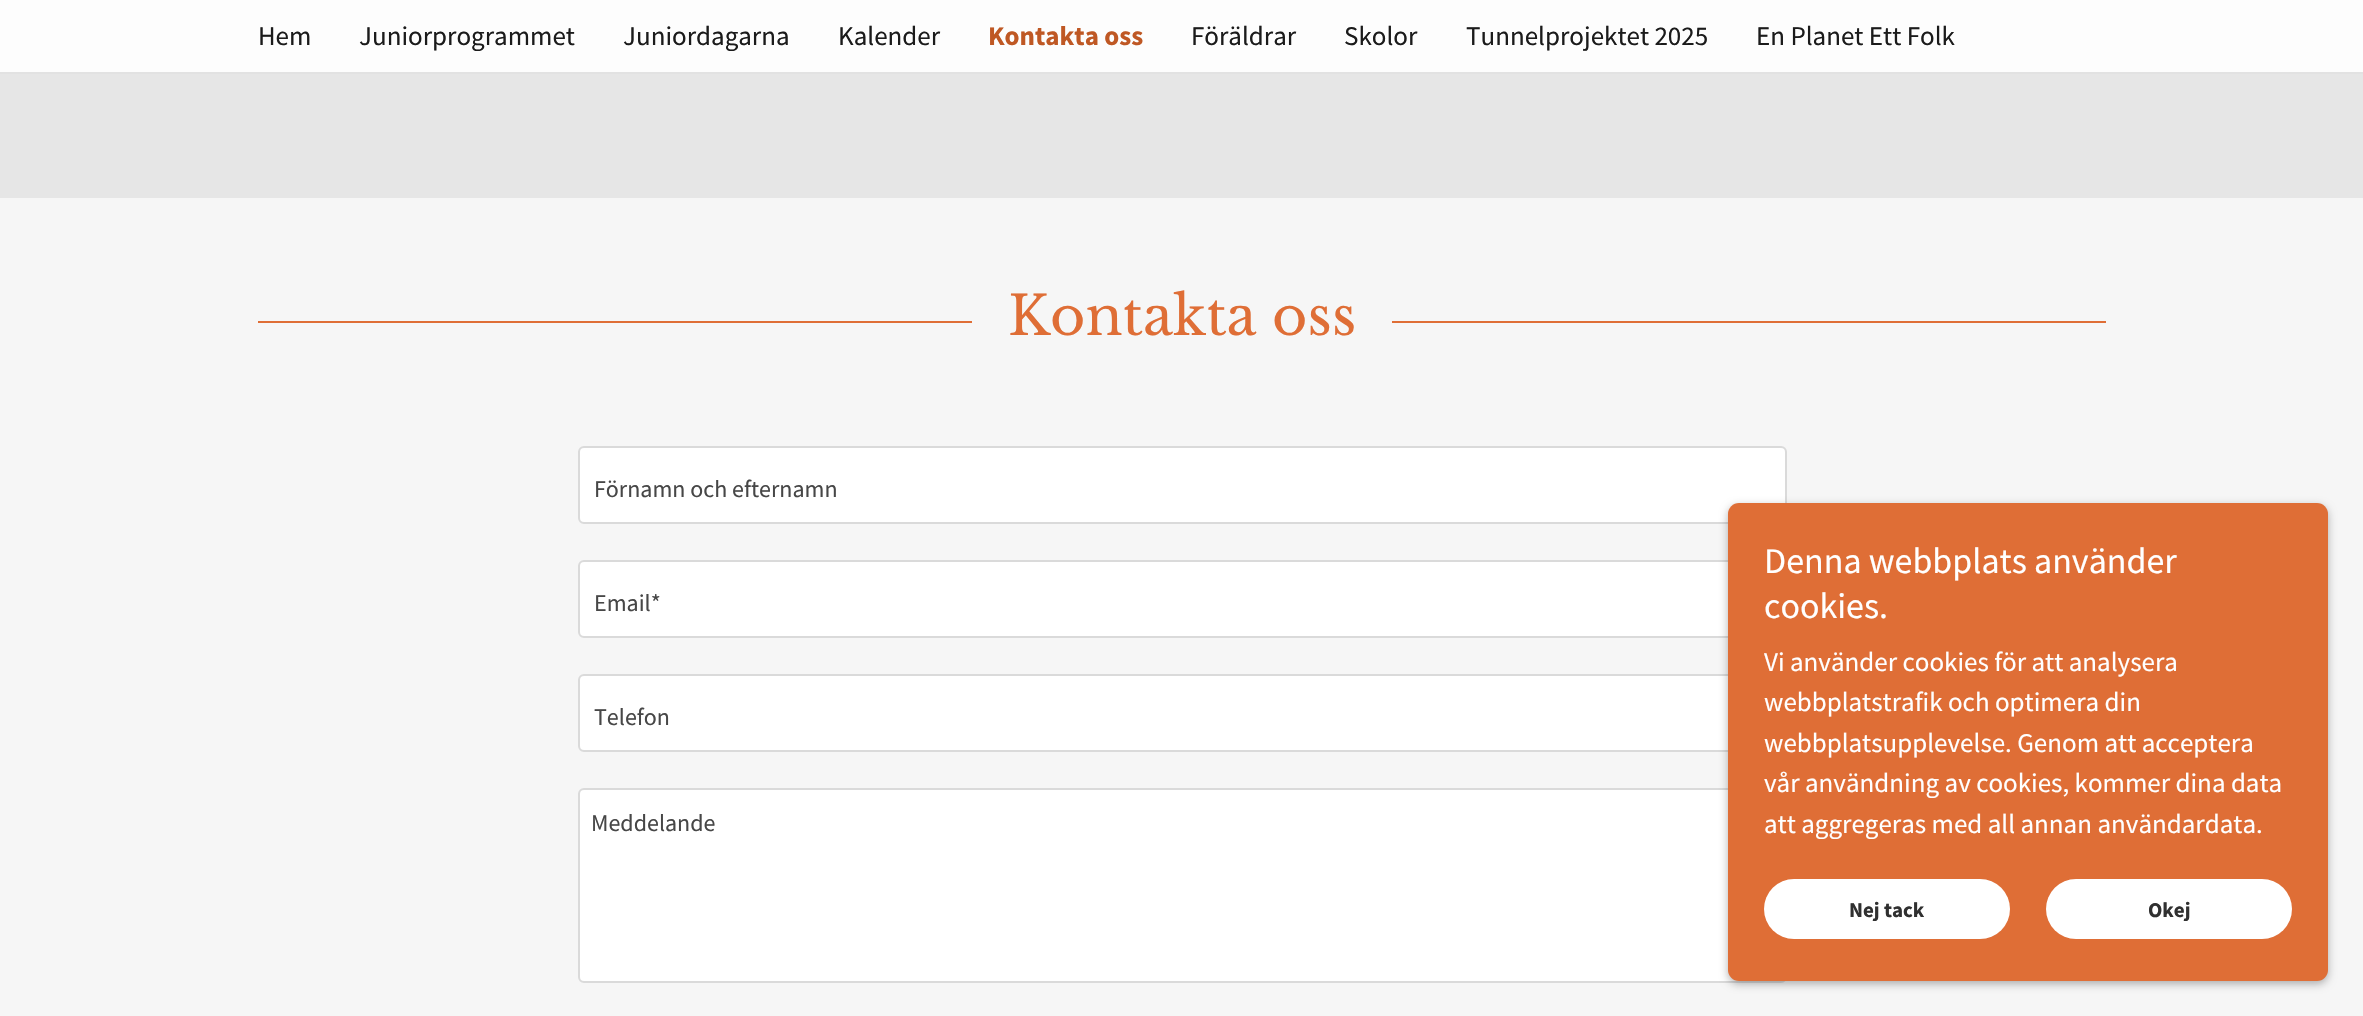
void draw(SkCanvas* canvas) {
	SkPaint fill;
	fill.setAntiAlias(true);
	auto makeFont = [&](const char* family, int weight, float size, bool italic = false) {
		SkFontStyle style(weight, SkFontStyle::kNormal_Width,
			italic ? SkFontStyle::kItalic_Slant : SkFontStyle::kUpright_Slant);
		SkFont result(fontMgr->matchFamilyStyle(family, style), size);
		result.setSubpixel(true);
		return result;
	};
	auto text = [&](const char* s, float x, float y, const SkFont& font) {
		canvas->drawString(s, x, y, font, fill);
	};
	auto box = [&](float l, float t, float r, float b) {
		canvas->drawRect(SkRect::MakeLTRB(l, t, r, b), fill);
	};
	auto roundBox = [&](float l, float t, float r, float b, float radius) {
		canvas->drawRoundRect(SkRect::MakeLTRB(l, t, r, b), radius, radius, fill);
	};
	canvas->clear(0xFFF6F6F6);
	fill.setColor(0xFFFDFDFD);
	box(0, 0, 2363, 72);
	fill.setColor(0xFFE2E2E2);
	box(0, 72, 2363, 74);
	fill.setColor(0xFFE6E6E6);
	box(0, 74, 2363, 198);
	fill.setColor(0xFFDF6E36);
	box(258, 321, 972, 323);
	box(1392, 321, 2106, 323);
	fill.setColor(0xFFFFFFFF);
	canvas->drawRoundRect(SkRect::MakeLTRB(579, 447, 1786, 523), 5, 5, fill);
	fill.setStyle(SkPaint::kStroke_Style);
	fill.setStrokeWidth(2);
	fill.setColor(0xFFDADADA);
	canvas->drawRoundRect(SkRect::MakeLTRB(579, 447, 1786, 523), 5, 5, fill);
	fill.setStyle(SkPaint::kFill_Style);
	fill.setColor(0xFFFFFFFF);
	canvas->drawRoundRect(SkRect::MakeLTRB(579, 561, 1786, 637), 5, 5, fill);
	fill.setStyle(SkPaint::kStroke_Style);
	fill.setColor(0xFFDADADA);
	canvas->drawRoundRect(SkRect::MakeLTRB(579, 561, 1786, 637), 5, 5, fill);
	fill.setStyle(SkPaint::kFill_Style);
	fill.setColor(0xFFFFFFFF);
	canvas->drawRoundRect(SkRect::MakeLTRB(579, 675, 1786, 751), 5, 5, fill);
	fill.setStyle(SkPaint::kStroke_Style);
	fill.setColor(0xFFDADADA);
	canvas->drawRoundRect(SkRect::MakeLTRB(579, 675, 1786, 751), 5, 5, fill);
	fill.setStyle(SkPaint::kFill_Style);
	fill.setColor(0xFFFFFFFF);
	canvas->drawRoundRect(SkRect::MakeLTRB(579, 789, 1786, 982), 5, 5, fill);
	fill.setStyle(SkPaint::kStroke_Style);
	fill.setColor(0xFFDADADA);
	canvas->drawRoundRect(SkRect::MakeLTRB(579, 789, 1786, 982), 5, 5, fill);
	fill.setStyle(SkPaint::kFill_Style);
	fill.setColor(0x4D000000);
	fill.setMaskFilter(SkMaskFilter::MakeBlur(kNormal_SkBlurStyle, 4.5f));
	canvas->drawRoundRect(SkRect::MakeLTRB(1728, 506, 2328, 984), 11, 11, fill);
	fill.setMaskFilter(nullptr);
	fill.setColor(0xFFDF6E36);
	roundBox(1728, 503, 2328, 981, 11);
	fill.setColor(0xFFFFFFFF);
	roundBox(1764, 879, 2010, 939, 30);
	roundBox(2046, 879, 2292, 939, 30);
	auto font1 = makeFont("Source Sans Pro", 400, 27);
	fill.setColor(0xFF1B1B1B);
	text("Hem", 258, 45, font1);
	text("Juniorprogrammet", 359, 45, font1);
	text("Juniordagarna", 623, 45, font1);
	text("Kalender", 838, 45, font1);
	auto font2 = makeFont("Source Sans Pro", 700, 27);
	fill.setColor(0xFFBF5824);
	text("Kontakta oss", 988, 45, font2);
	fill.setColor(0xFF1B1B1B);
	text("Föräldrar", 1191, 45, font1);
	text("Skolor", 1344, 45, font1);
	text("Tunnelprojektet 2025", 1466, 45, font1);
	text("En Planet Ett Folk", 1756, 45, font1);
	auto font3 = makeFont("Libre Baskerville", 400, 54);
	fill.setColor(0xFFDF6E36);
	text("Kontakta oss", 1008, 335, font3);
	auto font4 = makeFont("Source Sans Pro", 400, 24);
	fill.setColor(0xFF474747);
	text("Förnamn och efternamn", 594, 497, font4);
	text("Email*", 594, 611, font4);
	text("Telefon", 594, 725, font4);
	text("Meddelande", 591, 831, font4);
	auto font5 = makeFont("Source Sans Pro", 400, 36);
	fill.setColor(0xFFFFFFFF);
	text("Denna webbplats använder", 1764, 573, font5);
	text("cookies.", 1764, 618, font5);
	text("Vi använder cookies för att analysera", 1764, 671, font1);
	text("webbplatstrafik och optimera din", 1764, 711, font1);
	text("webbplatsupplevelse. Genom att acceptera", 1764, 752, font1);
	text("vår användning av cookies, kommer dina data", 1764, 792, font1);
	text("att aggregeras med all annan användardata.", 1764, 833, font1);
	auto font6 = makeFont("Source Sans Pro", 700, 21);
	fill.setColor(0xFF303030);
	text("Nej tack", 1849, 917, font6);
	text("Okej", 2148, 917, font6);
}
